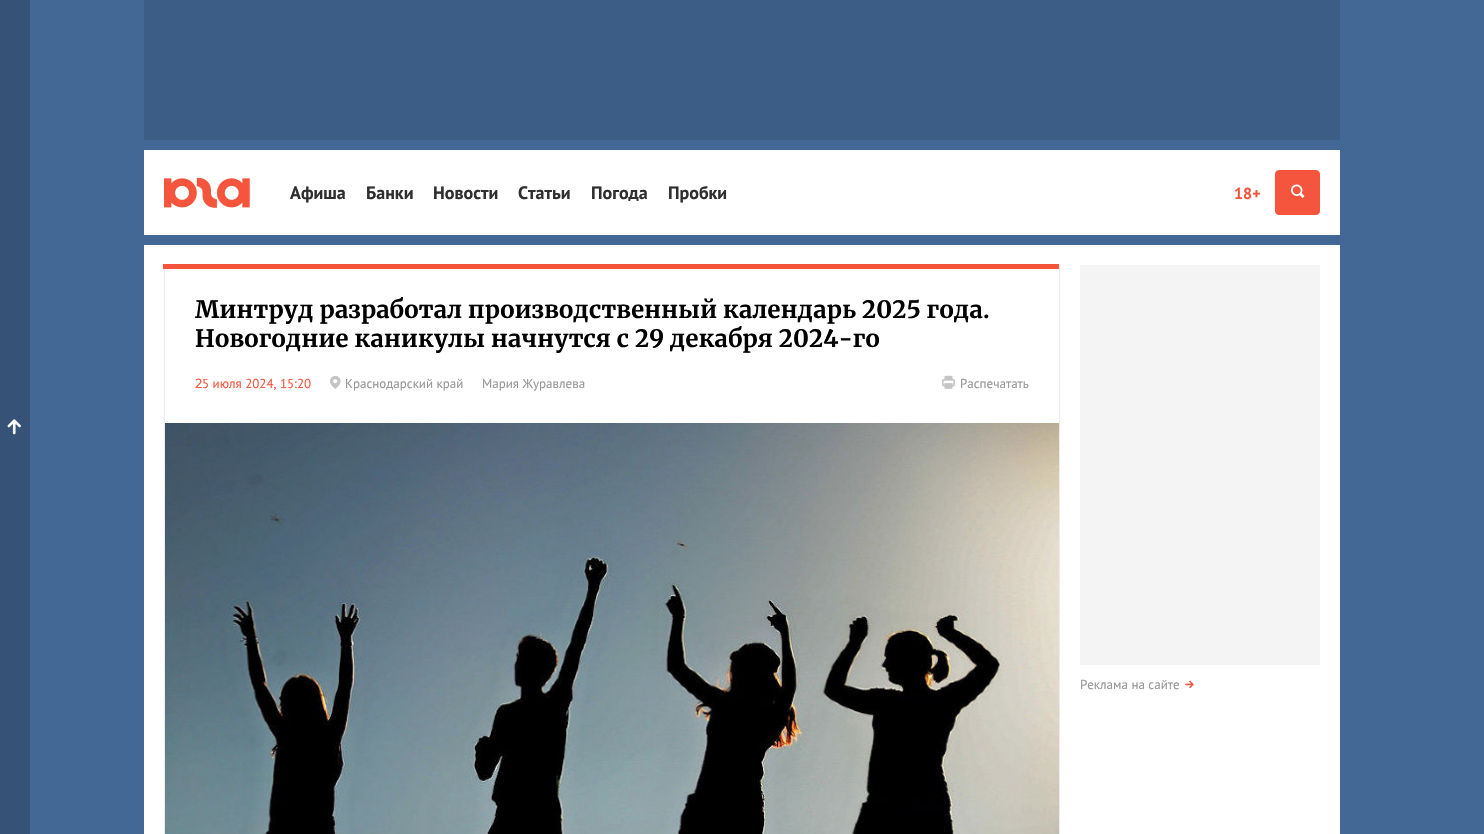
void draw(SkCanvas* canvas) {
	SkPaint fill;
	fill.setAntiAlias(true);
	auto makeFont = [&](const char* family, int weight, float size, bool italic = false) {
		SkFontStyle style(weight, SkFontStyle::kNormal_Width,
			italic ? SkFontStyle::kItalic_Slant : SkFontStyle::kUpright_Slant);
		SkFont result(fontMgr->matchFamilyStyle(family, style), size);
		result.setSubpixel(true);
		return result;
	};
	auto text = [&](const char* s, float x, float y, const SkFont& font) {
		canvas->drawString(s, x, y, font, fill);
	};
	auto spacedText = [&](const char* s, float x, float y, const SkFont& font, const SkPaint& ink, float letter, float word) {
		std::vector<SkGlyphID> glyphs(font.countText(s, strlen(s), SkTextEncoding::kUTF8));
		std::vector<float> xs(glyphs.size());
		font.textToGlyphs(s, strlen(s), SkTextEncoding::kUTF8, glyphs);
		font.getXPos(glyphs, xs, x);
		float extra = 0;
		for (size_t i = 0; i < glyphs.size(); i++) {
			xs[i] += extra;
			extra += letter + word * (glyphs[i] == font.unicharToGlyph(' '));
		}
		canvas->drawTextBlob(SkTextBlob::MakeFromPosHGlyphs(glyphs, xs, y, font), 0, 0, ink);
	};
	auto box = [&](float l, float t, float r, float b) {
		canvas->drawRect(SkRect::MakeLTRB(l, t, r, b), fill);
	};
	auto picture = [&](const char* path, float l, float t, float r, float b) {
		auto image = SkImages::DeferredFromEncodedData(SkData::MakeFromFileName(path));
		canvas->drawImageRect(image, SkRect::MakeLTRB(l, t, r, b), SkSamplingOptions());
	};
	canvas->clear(0xFF436895);
	fill.setColor(0xFF365377);
	box(0, 0, 30, 834);
	picture("image0.png", 7, 419, 21, 435);
	fill.setColor(0xFF3C5E86);
	box(144, 0, 1340, 140);
	fill.setColor(0xFFFFFFFF);
	box(144, 150, 1340, 235);
	picture("image1.png", 164, 177, 250, 208);
	fill.setColor(0xFFF5553D);
	canvas->drawRoundRect(SkRect::MakeLTRB(1275.5f, 170.5f, 1319.5f, 214.5f), 3.5f, 3.5f, fill);
	fill.setStyle(SkPaint::kStroke_Style);
	fill.setStrokeWidth(1);
	canvas->drawRoundRect(SkRect::MakeLTRB(1275.5f, 170.5f, 1319.5f, 214.5f), 3.5f, 3.5f, fill);
	picture("image2.png", 1291, 184, 1305, 198);
	fill.setStyle(SkPaint::kFill_Style);
	fill.setColor(0xFFFFFFFF);
	box(144, 245, 1340, 834);
	fill.setStyle(SkPaint::kStroke_Style);
	fill.setColor(0xFFECECEC);
	canvas->drawRect(SkRect::MakeLTRB(164.5f, 265.5f, 1059.5f, 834.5f), fill);
	fill.setStyle(SkPaint::kFill_Style);
	fill.setColor(0xFFF5553D);
	box(163, 264, 1059, 269);
	picture("image3.png", 330, 376, 341, 389);
	picture("image4.png", 942, 375, 955, 389);
	picture("image5.png", 165, 423, 1059, 834);
	fill.setColor(0xFFF4F4F4);
	box(1080, 265, 1320, 665);
	picture("image6.png", 1185, 680, 1194, 689);
	auto font1 = makeFont("PT Sans", 700, 18);
	fill.setColor(0xFF2F2F2F);
	text("Афиша", 290, 199, font1);
	text("Банки", 366, 199, font1);
	text("Новости", 433, 199, font1);
	text("Статьи", 518, 199, font1);
	text("Погода", 591, 199, font1);
	text("Пробки", 668, 199, font1);
	auto font2 = makeFont("PT Sans", 700, 16);
	fill.setColor(0xFFF5553D);
	text("18+", 1234, 199, font2);
	auto font3 = makeFont("Merriweather", 700, 24);
	fill.setColor(0xFF000000);
	spacedText("Минтруд разработал производственный календарь 2025 года.", 195, 318, font3, fill, 0.2f, 0);
	spacedText("Новогодние каникулы начнутся с 29 декабря 2024-го", 195, 347, font3, fill, 0.2f, 0);
	auto font4 = makeFont("Noto Sans", 400, 13);
	fill.setColor(0xFFF5553D);
	text("2", 195, 388, font4);
	auto font5 = makeFont("PT Sans", 400, 13);
	text("5 июля 2024, 15:20", 202, 388, font5);
	fill.setColor(0xFF969696);
	text("Краснодарский край", 345, 388, font5);
	text("Мария Журавлева", 482, 388, font5);
	text("Распечатать", 960, 388, font5);
	text("Реклама на сайте", 1080, 689, font5);
}
